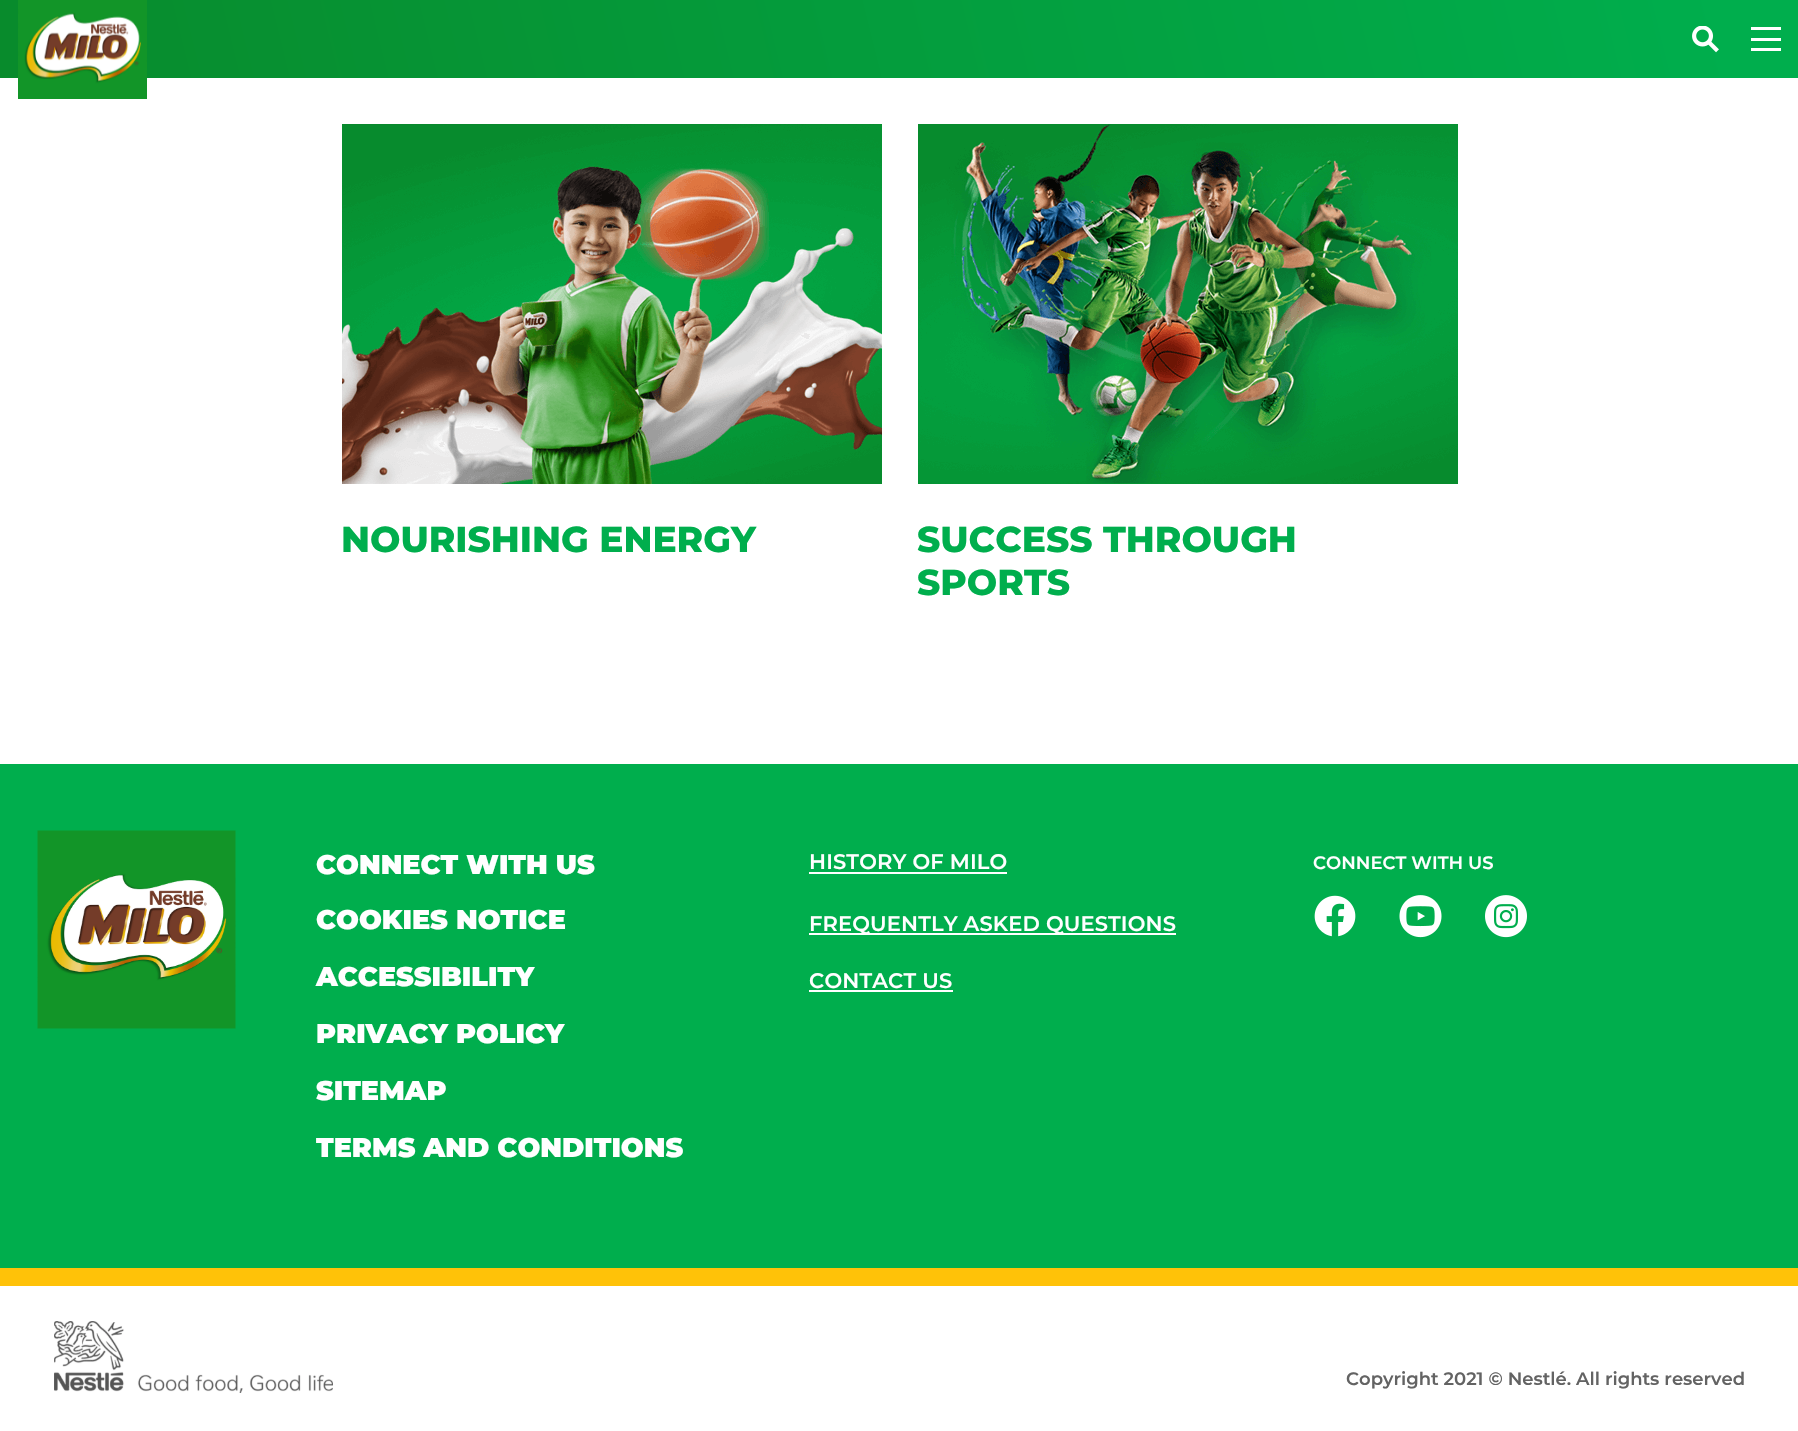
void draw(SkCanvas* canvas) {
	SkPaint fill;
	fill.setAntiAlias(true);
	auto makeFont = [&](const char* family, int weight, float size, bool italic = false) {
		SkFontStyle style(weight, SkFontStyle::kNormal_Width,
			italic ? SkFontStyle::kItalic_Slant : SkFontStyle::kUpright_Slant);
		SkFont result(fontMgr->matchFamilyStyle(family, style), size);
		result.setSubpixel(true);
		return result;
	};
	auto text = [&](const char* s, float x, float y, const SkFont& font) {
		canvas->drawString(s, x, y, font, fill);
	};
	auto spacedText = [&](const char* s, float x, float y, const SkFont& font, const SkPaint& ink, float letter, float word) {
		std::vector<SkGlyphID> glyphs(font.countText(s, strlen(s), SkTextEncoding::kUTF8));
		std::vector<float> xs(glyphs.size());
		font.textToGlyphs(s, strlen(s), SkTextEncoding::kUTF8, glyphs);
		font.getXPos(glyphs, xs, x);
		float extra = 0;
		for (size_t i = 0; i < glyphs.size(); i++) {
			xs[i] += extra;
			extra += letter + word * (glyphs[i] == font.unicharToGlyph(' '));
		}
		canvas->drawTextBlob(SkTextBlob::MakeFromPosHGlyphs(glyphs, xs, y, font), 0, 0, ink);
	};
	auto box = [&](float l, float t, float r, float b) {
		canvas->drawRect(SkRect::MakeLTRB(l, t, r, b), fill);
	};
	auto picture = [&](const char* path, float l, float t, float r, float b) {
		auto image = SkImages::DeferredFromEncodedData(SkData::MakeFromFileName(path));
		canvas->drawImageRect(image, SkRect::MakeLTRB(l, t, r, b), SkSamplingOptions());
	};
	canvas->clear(0xFFFFFFFF);
	{
		const SkColor colors[] = {0xFF00AE4D, 0xFF088B2C};
		const float stops[] = {0.04f, 0.99f};
		const SkPoint ends[] = {{1756, -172}, {43, 250}};
		fill.setShader(SkGradientShader::MakeLinear(ends, colors, stops, 2, SkTileMode::kClamp));
		fill.setAlpha(255);
	}
	box(0, 0, 1798, 78);
	picture("image0.png", 18, 0, 147, 99);
	picture("image1.png", 1692, 26, 1719, 53);
	fill.setShader(nullptr);
	fill.setColor(0xFFFFFFFF);
	box(1751, 27, 1781, 30);
	box(1751, 38, 1781, 41);
	box(1751, 48, 1781, 51);
	picture("image2.png", 342, 124, 882, 484);
	picture("image3.png", 918, 124, 1458, 484);
	fill.setColor(0xFF00AE4D);
	box(0, 764, 1798, 1268);
	fill.setColor(0xFFFFC208);
	box(0, 1268, 1798, 1286);
	picture("image4.png", 37, 830, 236, 1029);
	fill.setColor(0xFFFFFFFF);
	box(809, 872, 1007, 874);
	box(809, 933, 1176, 935);
	box(809, 990, 953, 992);
	picture("image5.png", 1314, 895, 1356, 937);
	picture("image6.png", 1399, 895, 1442, 938);
	picture("image7.png", 1485, 895, 1527, 938);
	picture("image8.png", 54, 1321, 333, 1393);
	auto font1 = makeFont("Montserrat", 800, 36);
	fill.setColor(0xFF00AE4D);
	text("NOURISHING ENERGY", 341, 552, font1);
	text("SUCCESS THROUGH", 917, 552, font1);
	text("SPORTS", 917, 595, font1);
	auto font2 = makeFont("Montserrat", 900, 27);
	fill.setColor(0xFFFFFFFF);
	text("CONNECT WITH US", 316, 874, font2);
	text("COOKIES NOTICE", 316, 929, font2);
	text("ACCESSIBILITY", 316, 986, font2);
	text("PRIVACY POLICY", 316, 1043, font2);
	text("SITEMAP", 316, 1100, font2);
	text("TERMS AND CONDITIONS", 316, 1157, font2);
	auto font3 = makeFont("Montserrat", 600, 21);
	spacedText("HISTORY OF MILO", 809, 869, font3, fill, 0.15f, 0);
	spacedText("FREQUENTLY ASKED QUESTIONS", 809, 931, font3, fill, 0.15f, 0);
	spacedText("CONTACT US", 809, 988, font3, fill, 0.15f, 0);
	auto font4 = makeFont("Montserrat", 600, 18);
	text("CONNECT WITH US", 1313, 869, font4);
	fill.setColor(0xFF636363);
	text("Copyright 2021 © Nestlé. All rights reserved", 1346, 1385, font4);
}
